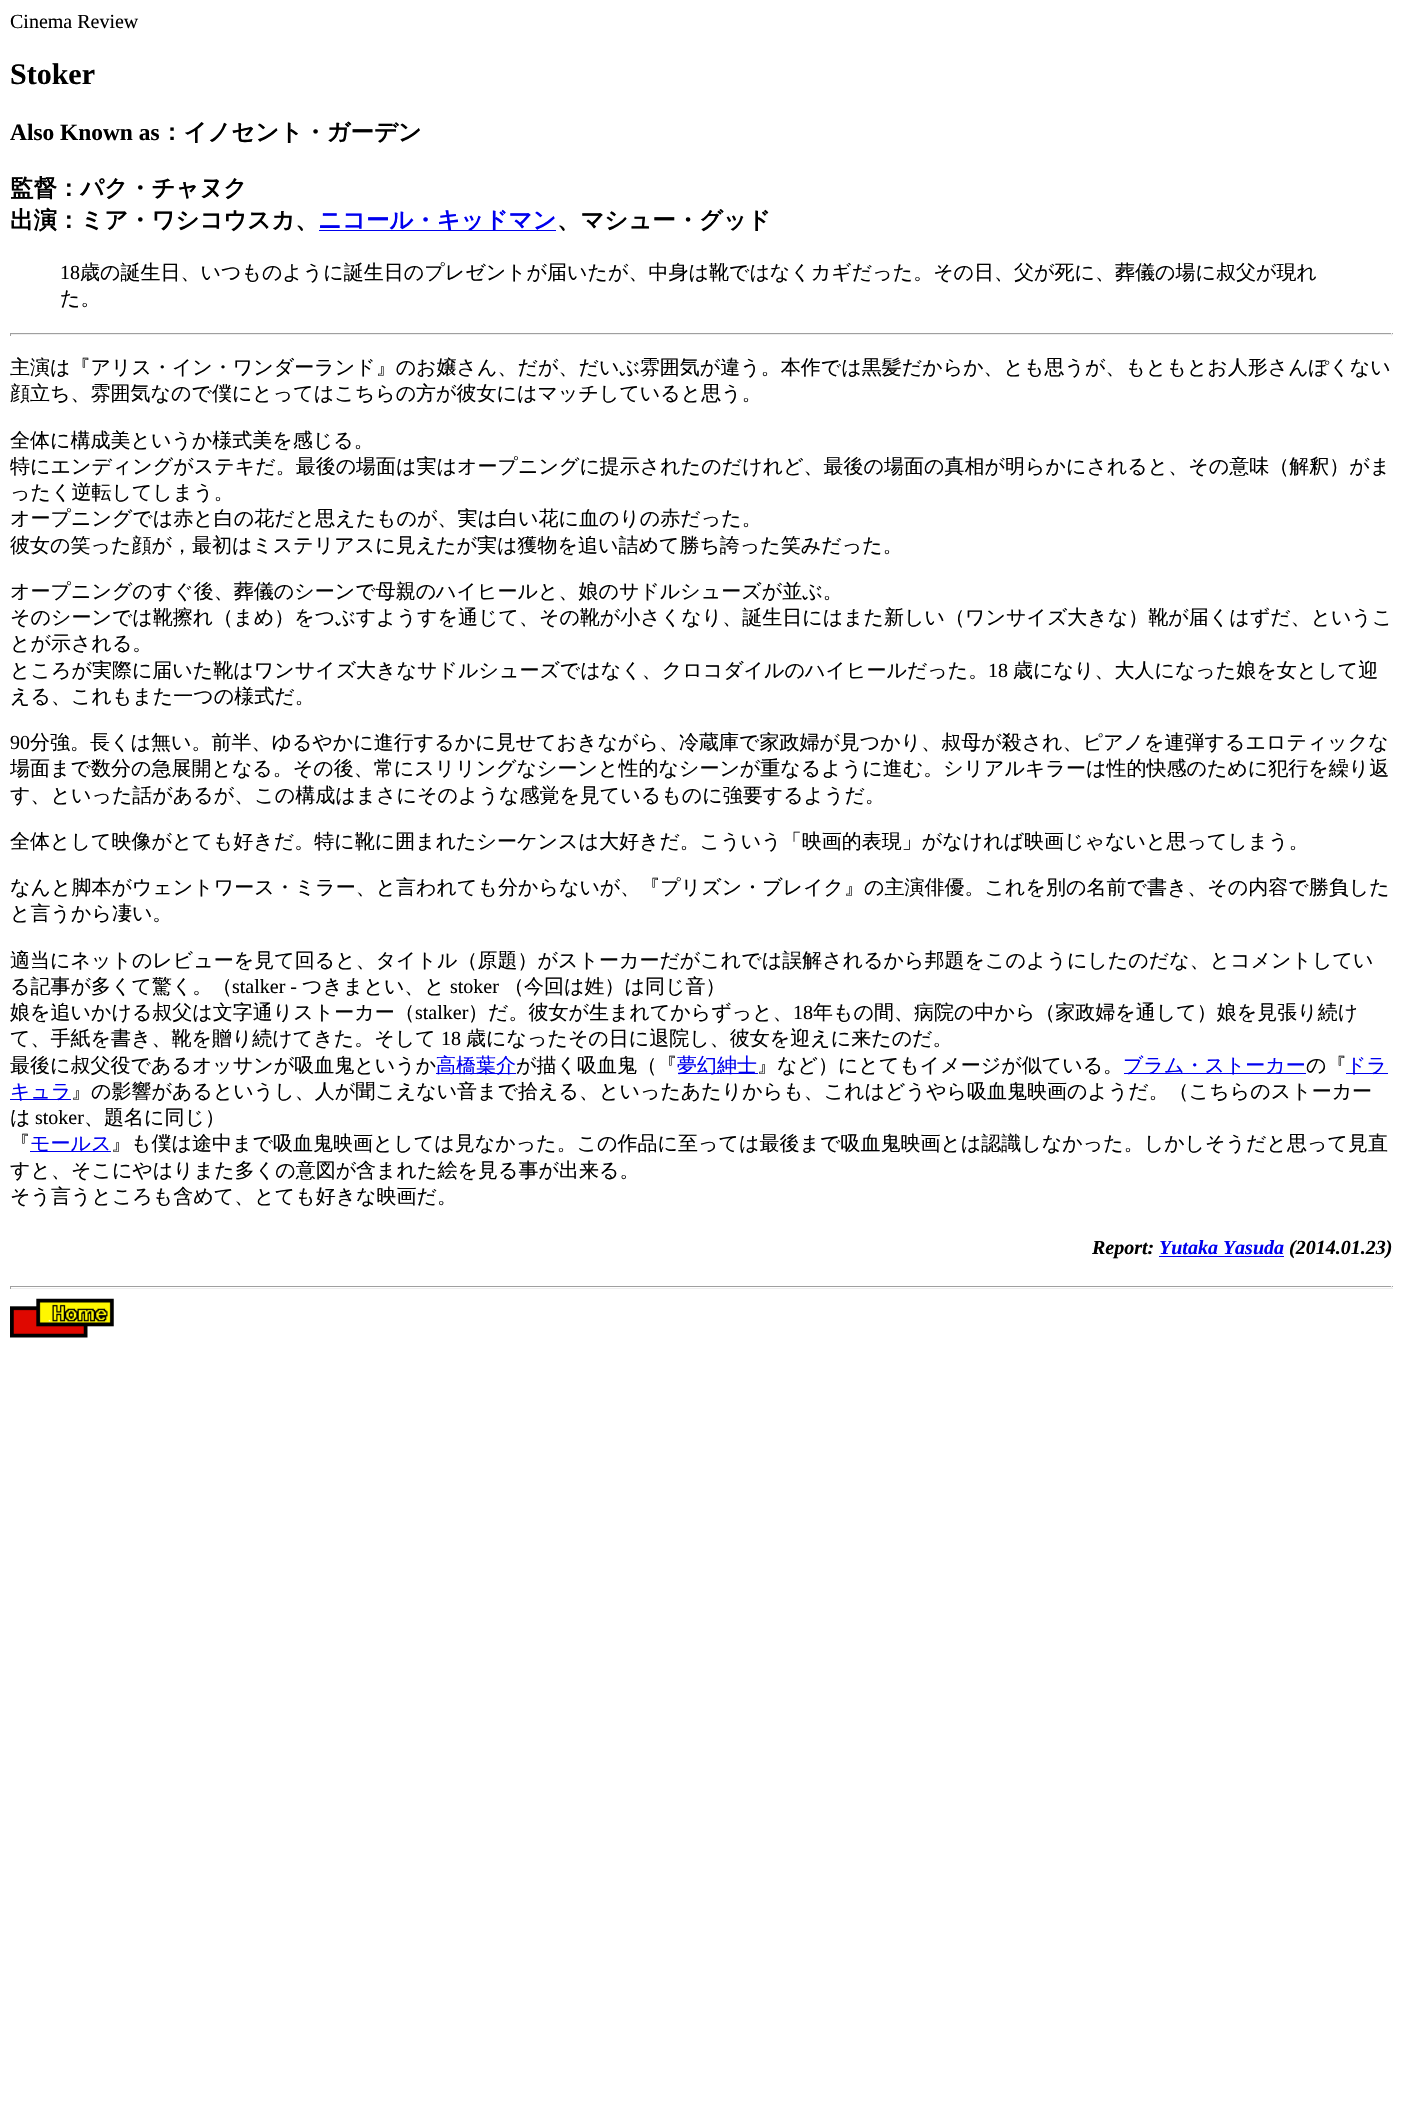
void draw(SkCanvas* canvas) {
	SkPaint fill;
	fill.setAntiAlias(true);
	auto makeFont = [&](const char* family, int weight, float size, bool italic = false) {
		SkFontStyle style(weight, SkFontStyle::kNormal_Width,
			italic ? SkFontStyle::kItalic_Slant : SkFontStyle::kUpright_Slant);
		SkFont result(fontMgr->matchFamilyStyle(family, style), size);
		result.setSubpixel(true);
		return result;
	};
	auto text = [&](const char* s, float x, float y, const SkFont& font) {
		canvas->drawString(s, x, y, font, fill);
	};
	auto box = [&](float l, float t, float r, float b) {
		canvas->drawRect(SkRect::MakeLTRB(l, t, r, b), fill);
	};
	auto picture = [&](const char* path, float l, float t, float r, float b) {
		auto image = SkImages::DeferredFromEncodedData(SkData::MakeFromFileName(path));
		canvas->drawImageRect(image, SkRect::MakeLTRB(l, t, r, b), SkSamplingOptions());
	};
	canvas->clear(0xFFFFFFFF);
	fill.setColor(0xFF0000EE);
	box(319, 230, 556, 231);
	fill.setColor(0xFF9F9F9F);
	box(10, 333, 1393, 334);
	fill.setColor(0xFFEEEEEE);
	box(1391, 333, 1392, 336);
	box(10, 334, 1393, 335);
	fill.setColor(0xFF9F9F9F);
	box(10, 333, 11, 336);
	fill.setColor(0xFF0000EE);
	box(436, 1073, 516, 1074);
	box(678, 1073, 758, 1074);
	box(1124, 1073, 1306, 1074);
	box(1346, 1073, 1388, 1074);
	box(10, 1099, 71, 1100);
	box(30, 1151, 111, 1152);
	box(1159, 1256, 1284, 1257);
	fill.setColor(0xFF9F9F9F);
	box(10, 1286, 1393, 1287);
	fill.setColor(0xFFEEEEEE);
	box(1391, 1286, 1392, 1289);
	box(10, 1288, 1393, 1289);
	fill.setColor(0xFF9F9F9F);
	box(10, 1286, 11, 1289);
	picture("image0.png", 10, 1298, 114, 1338);
	auto font1 = makeFont("Liberation Serif", 400, 20);
	fill.setColor(0xFF000000);
	text("Cinema Review", 10, 28, font1);
	auto font2 = makeFont("Liberation Serif", 700, 30);
	text("Stoker", 10, 84, font2);
	auto font3 = makeFont("Liberation Serif", 700, 23.4f);
	text("Also Known as", 10, 140, font3);
	auto font4 = makeFont("WenQuanYi Zen Hei", 700, 23.4f);
	text("：イノセント・ガーデン", 160, 140, font4);
	text("監督：パク・チャヌク", 10, 196, font4);
	text("出演：ミア・ワシコウスカ、", 10, 228, font4);
	fill.setColor(0xFF0000EE);
	text("ニコール・キッドマン", 318, 228, font4);
	fill.setColor(0xFF000000);
	text("、マシュー・グッド", 557, 228, font4);
	text("18", 60, 279, font1);
	auto font5 = makeFont("WenQuanYi Zen Hei", 500, 20);
	text("歳の誕生日、いつものように誕生日のプレゼントが届いたが、中身は靴ではなくカギだった。その日、父が死に、葬儀の場に叔父が現れ", 80, 279, font5);
	text("た。", 60, 305, font5);
	text("主演は『アリス・イン・ワンダーランド』のお嬢さん、だが、だいぶ雰囲気が違う。本作では黒髪だからか、とも思うが、もともとお人形さんぽくない", 10, 374, font5);
	text("顔立ち、雰囲気なので僕にとってはこちらの方が彼女にはマッチしていると思う。", 10, 400, font5);
	text("全体に構成美というか様式美を感じる。", 10, 447, font5);
	text("特にエンディングがステキだ。最後の場面は実はオープニングに提示されたのだけれど、最後の場面の真相が明らかにされると、その意味（解釈）がま", 10, 473, font5);
	text("ったく逆転してしまう。", 10, 499, font5);
	text("オープニングでは赤と白の花だと思えたものが、実は白い花に血のりの赤だった。", 10, 525, font5);
	text("彼女の笑った顔が，最初はミステリアスに見えたが実は獲物を追い詰めて勝ち誇った笑みだった。", 10, 552, font5);
	text("オープニングのすぐ後、葬儀のシーンで母親のハイヒールと、娘のサドルシューズが並ぶ。", 10, 598, font5);
	text("そのシーンでは靴擦れ（まめ）をつぶすようすを通じて、その靴が小さくなり、誕生日にはまた新しい（ワンサイズ大きな）靴が届くはずだ、というこ", 10, 624, font5);
	text("とが示される。", 10, 650, font5);
	text("ところが実際に届いた靴はワンサイズ大きなサドルシューズではなく、クロコダイルのハイヒールだった。", 10, 677, font5);
	text("18", 988, 677, font1);
	text("歳になり、大人になった娘を女として迎", 1013, 677, font5);
	text("える、これもまた一つの様式だ。", 10, 703, font5);
	text("90", 10, 749, font1);
	text("分強。長くは無い。前半、ゆるやかに進行するかに見せておきながら、冷蔵庫で家政婦が見つかり、叔母が殺され、ピアノを連弾するエロティックな", 30, 749, font5);
	text("場面まで数分の急展開となる。その後、常にスリリングなシーンと性的なシーンが重なるように進む。シリアルキラーは性的快感のために犯行を繰り返", 10, 775, font5);
	text("す、といった話があるが、この構成はまさにそのような感覚を見ているものに強要するようだ。", 10, 802, font5);
	text("全体として映像がとても好きだ。特に靴に囲まれたシーケンスは大好きだ。こういう「映画的表現」がなければ映画じゃないと思ってしまう。", 10, 848, font5);
	text("なんと脚本がウェントワース・ミラー、と言われても分からないが、『プリズン・ブレイク』の主演俳優。これを別の名前で書き、その内容で勝負した", 10, 894, font5);
	text("と言うから凄い。", 10, 920, font5);
	text("適当にネットのレビューを見て回ると、タイトル（原題）がストーカーだがこれでは誤解されるから邦題をこのようにしたのだな、とコメントしてい", 10, 967, font5);
	text("る記事が多くて驚く。（", 10, 993, font5);
	text("stalker -", 232, 993, font1);
	text("つきまとい、と", 302, 993, font5);
	text("stoker", 450, 993, font1);
	text("（今回は姓）は同じ音）", 504, 993, font5);
	text("娘を追いかける叔父は文字通りストーカー（", 10, 1019, font5);
	text("stalker", 415, 1019, font1);
	text("）だ。彼女が生まれてからずっと、", 468, 1019, font5);
	text("18", 793, 1019, font1);
	text("年もの間、病院の中から（家政婦を通して）娘を見張り続け", 813, 1019, font5);
	text("て、手紙を書き、靴を贈り続けてきた。そして", 10, 1045, font5);
	text("18", 441, 1045, font1);
	text("歳になったその日に退院し、彼女を迎えに来たのだ。", 466, 1045, font5);
	text("最後に叔父役であるオッサンが吸血鬼というか", 10, 1072, font5);
	fill.setColor(0xFF0000EE);
	text("高橋葉介", 436, 1072, font5);
	fill.setColor(0xFF000000);
	text("が描く吸血鬼（『", 516, 1072, font5);
	fill.setColor(0xFF0000EE);
	text("夢幻紳士", 677, 1072, font5);
	fill.setColor(0xFF000000);
	text("』など）にとてもイメージが似ている。", 757, 1072, font5);
	fill.setColor(0xFF0000EE);
	text("ブラム・ストーカー", 1123, 1072, font5);
	fill.setColor(0xFF000000);
	text("の『", 1306, 1072, font5);
	fill.setColor(0xFF0000EE);
	text("ドラ", 1346, 1072, font5);
	text("キュラ", 10, 1098, font5);
	fill.setColor(0xFF000000);
	text("』の影響があるというし、人が聞こえない音まで拾える、といったあたりからも、これはどうやら吸血鬼映画のようだ。（こちらのストーカー", 71, 1098, font5);
	text("は", 10, 1124, font5);
	text("stoker", 35, 1124, font1);
	text("、題名に同じ）", 84, 1124, font5);
	text("『", 10, 1150, font5);
	fill.setColor(0xFF0000EE);
	text("モールス", 30, 1150, font5);
	fill.setColor(0xFF000000);
	text("』も僕は途中まで吸血鬼映画としては見なかった。この作品に至っては最後まで吸血鬼映画とは認識しなかった。しかしそうだと思って見直", 111, 1150, font5);
	text("すと、そこにやはりまた多くの意図が含まれた絵を見る事が出来る。", 10, 1177, font5);
	text("そう言うところも含めて、とても好きな映画だ。", 10, 1203, font5);
	auto font6 = makeFont("Liberation Serif", 700, 20, true);
	text("Report:", 1092, 1254, font6);
	fill.setColor(0xFF0000EE);
	text("Yutaka Yasuda", 1159, 1254, font6);
	fill.setColor(0xFF000000);
	text("(2014.01.23)", 1289, 1254, font6);
}
